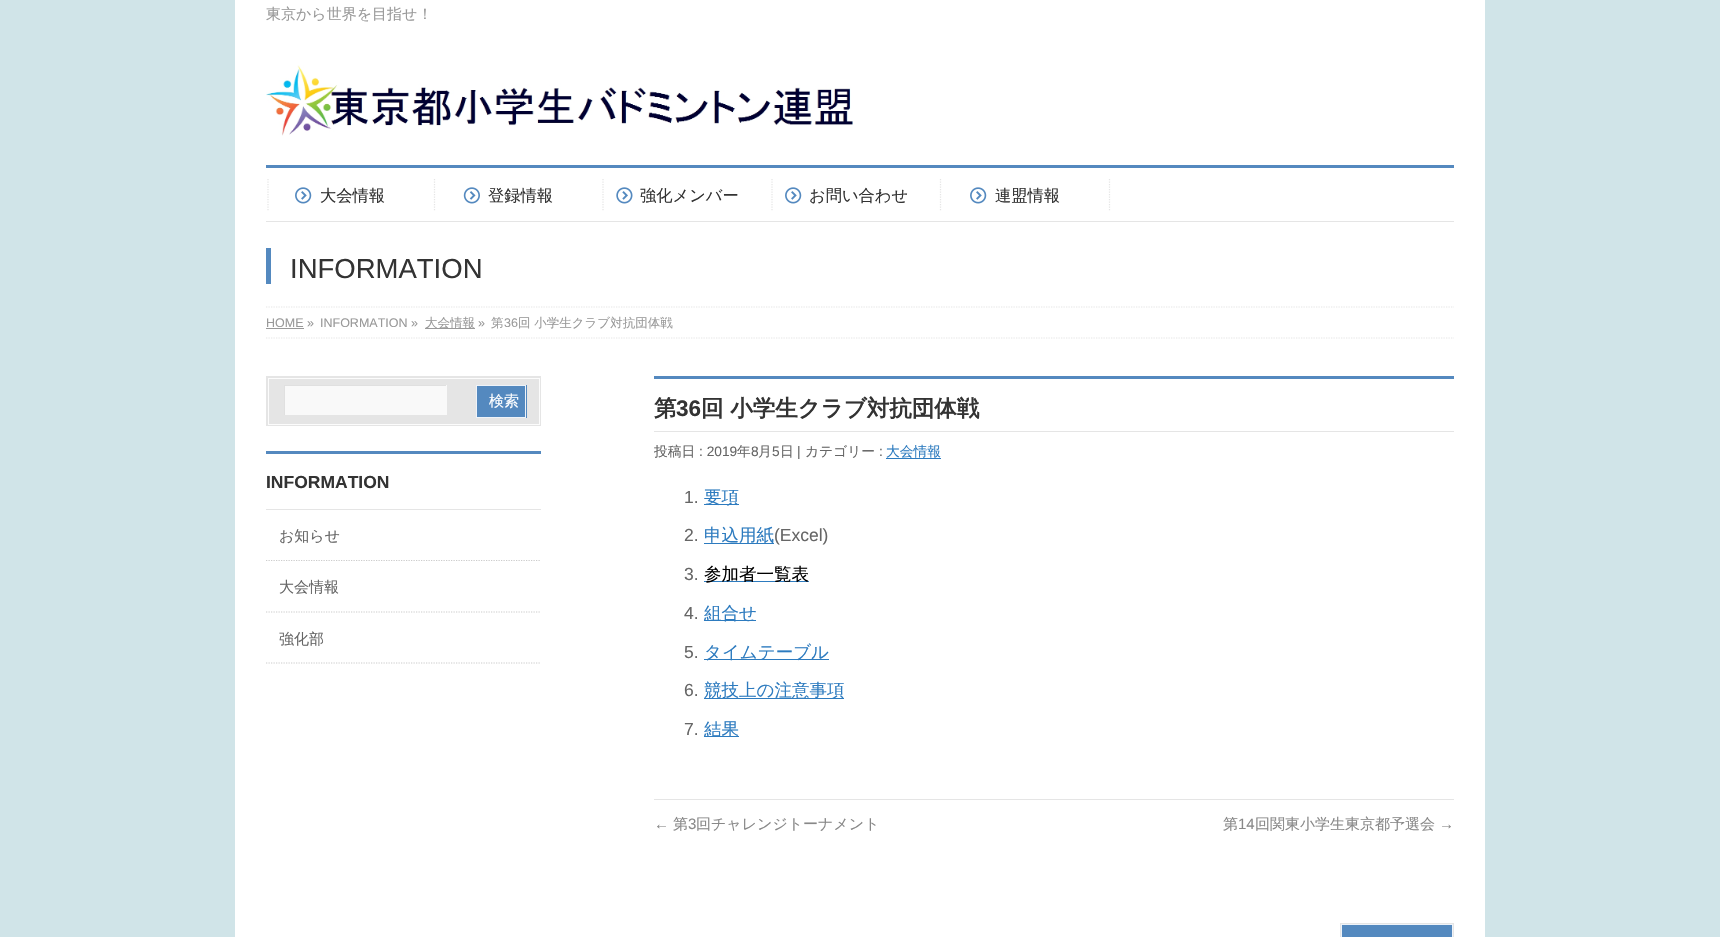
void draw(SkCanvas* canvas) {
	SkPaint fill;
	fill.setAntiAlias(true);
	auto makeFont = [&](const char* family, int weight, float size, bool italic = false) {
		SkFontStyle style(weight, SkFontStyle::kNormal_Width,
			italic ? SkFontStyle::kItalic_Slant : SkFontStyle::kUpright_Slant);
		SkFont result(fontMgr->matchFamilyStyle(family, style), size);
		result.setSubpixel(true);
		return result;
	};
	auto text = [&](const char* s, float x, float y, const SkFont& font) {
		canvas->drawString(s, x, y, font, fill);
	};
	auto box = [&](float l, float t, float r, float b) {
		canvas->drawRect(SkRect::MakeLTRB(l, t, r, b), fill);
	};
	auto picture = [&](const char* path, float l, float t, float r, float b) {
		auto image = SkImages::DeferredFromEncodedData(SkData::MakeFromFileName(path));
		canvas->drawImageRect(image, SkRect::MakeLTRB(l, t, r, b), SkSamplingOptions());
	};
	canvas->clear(0xFFD0E4E8);
	fill.setColor(0xFFFFFFFF);
	box(235, 0, 1485, 223);
	picture("image0.png", 266, 65, 853, 136);
	fill.setColor(0xFF5489BF);
	box(266, 165, 1454, 168);
	fill.setColor(0xFFE5E5E5);
	box(266, 221, 1454, 222);
	fill.setStyle(SkPaint::kStroke_Style);
	fill.setStrokeWidth(1.2f);
	fill.setPathEffect(SkDashPathEffect::Make({{1.25f, 1.25f}}, 0));
	canvas->drawPath(SkPathBuilder().moveTo(268, 179).lineTo(268, 211).detach(), fill);
	fill.setPathEffect(nullptr);
	picture("image1.png", 295, 187, 312, 204);
	fill.setPathEffect(SkDashPathEffect::Make({{1.25f, 1.25f}}, 0));
	canvas->drawPath(SkPathBuilder().moveTo(434.5f, 179).lineTo(434.5f, 211).detach(), fill);
	fill.setPathEffect(nullptr);
	picture("image2.png", 463, 187, 480, 204);
	fill.setPathEffect(SkDashPathEffect::Make({{1.25f, 1.25f}}, 0));
	canvas->drawPath(SkPathBuilder().moveTo(603, 179).lineTo(603, 211).detach(), fill);
	fill.setPathEffect(nullptr);
	picture("image3.png", 616, 187, 633, 204);
	fill.setPathEffect(SkDashPathEffect::Make({{1.25f, 1.25f}}, 0));
	canvas->drawPath(SkPathBuilder().moveTo(772, 179).lineTo(772, 211).detach(), fill);
	fill.setPathEffect(nullptr);
	picture("image1.png", 785, 187, 802, 204);
	fill.setPathEffect(SkDashPathEffect::Make({{1.25f, 1.25f}}, 0));
	canvas->drawPath(SkPathBuilder().moveTo(940.5f, 179).lineTo(940.5f, 211).detach(), fill);
	fill.setPathEffect(nullptr);
	picture("image1.png", 970, 187, 987, 204);
	fill.setPathEffect(SkDashPathEffect::Make({{1.25f, 1.25f}}, 0));
	canvas->drawPath(SkPathBuilder().moveTo(1109.5f, 179).lineTo(1109.5f, 211).detach(), fill);
	fill.setPathEffect(nullptr);
	fill.setStyle(SkPaint::kFill_Style);
	fill.setColor(0xFFFFFFFF);
	box(235, 223, 1485, 306);
	fill.setColor(0xFF5489BF);
	box(266, 248, 271, 284);
	fill.setColor(0xFFFFFFFF);
	box(235, 306, 1485, 937);
	fill.setStyle(SkPaint::kStroke_Style);
	fill.setColor(0xFFE5E5E5);
	fill.setPathEffect(SkDashPathEffect::Make({{1.25f, 1.25f}}, 0));
	canvas->drawPath(SkPathBuilder().moveTo(266, 307).lineTo(1454, 307).detach(), fill);
	fill.setPathEffect(nullptr);
	fill.setPathEffect(SkDashPathEffect::Make({{1.25f, 1.25f}}, 0));
	canvas->drawPath(SkPathBuilder().moveTo(266, 338).lineTo(1454, 338).detach(), fill);
	fill.setPathEffect(nullptr);
	fill.setStyle(SkPaint::kFill_Style);
	fill.setColor(0xFF999999);
	box(266, 328, 304, 329);
	box(425, 328, 475, 329);
	fill.setColor(0xFFE5E5E5);
	box(266, 376, 541, 426);
	fill.setStyle(SkPaint::kStroke_Style);
	fill.setStrokeWidth(1);
	fill.setColor(0xFFFCFCFC);
	canvas->drawRect(SkRect::MakeLTRB(268.5f, 378.5f, 539.5f, 424.5f), fill);
	fill.setStyle(SkPaint::kFill_Style);
	fill.setColor(0xFFF9F9F9);
	box(285, 385, 447, 415);
	canvas->save();
	canvas->clipRect(SkRect::MakeLTRB(284, 385, 446, 415));
	fill.setColor(0xFFE0E0E0);
	canvas->drawPath(SkPathBuilder(SkPathFillType::kEvenOdd).moveTo(160, 261).lineTo(570, 261).lineTo(570, 539).lineTo(160, 539).close().moveTo(285, 386).lineTo(448, 386).lineTo(448, 416).lineTo(285, 416).close().detach(), fill);
	canvas->restore();
	fill.setColor(0xFF5489BF);
	box(477, 385, 527, 418);
	fill.setStyle(SkPaint::kStroke_Style);
	fill.setColor(0xFFEEF3F9);
	canvas->drawRect(SkRect::MakeLTRB(476.5f, 385.5f, 525.5f, 417.5f), fill);
	fill.setStyle(SkPaint::kFill_Style);
	fill.setColor(0xFF5489BF);
	box(266, 451, 541, 454);
	fill.setColor(0xFFE5E5E5);
	box(266, 509, 541, 510);
	fill.setStyle(SkPaint::kStroke_Style);
	fill.setStrokeWidth(1.2f);
	fill.setColor(0xFFCCCCCC);
	fill.setPathEffect(SkDashPathEffect::Make({{1.25f, 1.25f}}, 0));
	canvas->drawPath(SkPathBuilder().moveTo(266, 560.5f).lineTo(541, 560.5f).detach(), fill);
	fill.setPathEffect(nullptr);
	fill.setPathEffect(SkDashPathEffect::Make({{1.25f, 1.25f}}, 0));
	canvas->drawPath(SkPathBuilder().moveTo(266, 612).lineTo(541, 612).detach(), fill);
	fill.setPathEffect(nullptr);
	fill.setPathEffect(SkDashPathEffect::Make({{1.25f, 1.25f}}, 0));
	canvas->drawPath(SkPathBuilder().moveTo(266, 663).lineTo(541, 663).detach(), fill);
	fill.setPathEffect(nullptr);
	fill.setStyle(SkPaint::kFill_Style);
	fill.setColor(0xFF5489BF);
	box(654, 376, 1454, 379);
	fill.setColor(0xFFE5E5E5);
	box(654, 431, 1454, 432);
	fill.setColor(0xFF2D7BBF);
	box(886, 458, 941, 459);
	box(704, 504, 739, 505);
	box(704, 543, 774, 544);
	box(704, 581, 809, 582);
	box(704, 620, 756, 621);
	box(704, 659, 829, 660);
	box(704, 698, 844, 699);
	box(704, 736, 739, 737);
	fill.setColor(0xFFE5E5E5);
	box(654, 799, 1454, 800);
	fill.setColor(0xFF5489BF);
	canvas->drawRect(SkRect::MakeLTRB(1341.5f, 924.5f, 1452.5f, 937.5f), fill);
	fill.setStyle(SkPaint::kStroke_Style);
	fill.setStrokeWidth(1);
	fill.setColor(0xFFEEF3F9);
	canvas->drawRect(SkRect::MakeLTRB(1341.5f, 924.5f, 1452.5f, 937.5f), fill);
	fill.setColor(0xFFE5E5E5);
	canvas->drawRect(SkRect::MakeLTRB(1340.5f, 923.5f, 1453.5f, 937.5f), fill);
	auto font1 = makeFont("WenQuanYi Zen Hei", 500, 15);
	fill.setStyle(SkPaint::kFill_Style);
	fill.setColor(0xFF999999);
	text("東京から世界を目指せ！", 266, 19, font1);
	auto font2 = makeFont("WenQuanYi Zen Hei", 500, 16.25f);
	fill.setColor(0xFF333333);
	text("大会情報", 320, 201, font2);
	text("登録情報", 488, 201, font2);
	text("強化メンバー", 640, 201, font2);
	text("お問い合わせ", 809, 201, font2);
	text("連盟情報", 995, 201, font2);
	auto font3 = makeFont("Liberation Sans", 400, 27.5f);
	text("INFORMATION", 290, 278, font3);
	auto font4 = makeFont("Liberation Sans", 400, 12.5f);
	fill.setColor(0xFF999999);
	text("HOME »", 266, 327, font4);
	text("INFORMATION »", 320, 327, font4);
	auto font5 = makeFont("WenQuanYi Zen Hei", 500, 12.5f);
	text("大会情報", 425, 327, font5);
	text("»", 478, 327, font4);
	text("第", 491, 327, font5);
	text("36", 504, 327, font4);
	text("回 小学生クラブ対抗団体戦", 518, 327, font5);
	fill.setColor(0xFFFFFFFF);
	text("検索", 489, 406, font1);
	auto font6 = makeFont("Liberation Sans", 700, 17.5f);
	fill.setColor(0xFF333333);
	text("INFORMATION", 266, 488, font6);
	fill.setColor(0xFF666666);
	text("お知らせ", 279, 541, font1);
	text("大会情報", 279, 592, font1);
	text("強化部", 279, 644, font1);
	auto font7 = makeFont("WenQuanYi Zen Hei", 700, 22.5f);
	fill.setColor(0xFF333333);
	text("第", 654, 416, font7);
	auto font8 = makeFont("Liberation Sans", 700, 22.5f);
	text("36", 676, 416, font8);
	text("回 小学生クラブ対抗団体戦", 701, 416, font7);
	auto font9 = makeFont("WenQuanYi Zen Hei", 500, 13.75f);
	fill.setColor(0xFF666666);
	text("投稿日", 654, 456, font9);
	auto font10 = makeFont("Liberation Sans", 400, 13.75f);
	text(": 2019", 699, 456, font10);
	text("年", 737, 456, font9);
	text("8", 751, 456, font10);
	text("月", 758, 456, font9);
	text("5", 772, 456, font10);
	text("日", 780, 456, font9);
	text("|", 797, 456, font10);
	text("カテゴリー", 805, 456, font9);
	text(":", 879, 456, font10);
	fill.setColor(0xFF2D7BBF);
	text("大会情報", 886, 456, font9);
	auto font11 = makeFont("Liberation Sans", 400, 17.5f);
	fill.setColor(0xFF666666);
	text("1.", 684, 503, font11);
	auto font12 = makeFont("WenQuanYi Zen Hei", 500, 17.5f);
	fill.setColor(0xFF2D7BBF);
	text("要項", 704, 503, font12);
	fill.setColor(0xFF666666);
	text("2.", 684, 541, font11);
	fill.setColor(0xFF2D7BBF);
	text("申込用紙", 704, 541, font12);
	fill.setColor(0xFF666666);
	text("(Excel)", 774, 541, font11);
	text("3.", 684, 580, font11);
	fill.setColor(0xFF000000);
	text("参加者一覧表", 704, 580, font12);
	fill.setColor(0xFF666666);
	text("4.", 684, 619, font11);
	fill.setColor(0xFF2D7BBF);
	text("組合せ", 704, 619, font12);
	fill.setColor(0xFF666666);
	text("5.", 684, 658, font11);
	fill.setColor(0xFF2D7BBF);
	text("タイムテーブル", 704, 658, font12);
	fill.setColor(0xFF666666);
	text("6.", 684, 696, font11);
	fill.setColor(0xFF2D7BBF);
	text("競技上の注意事項", 704, 696, font12);
	fill.setColor(0xFF666666);
	text("7.", 684, 735, font11);
	fill.setColor(0xFF2D7BBF);
	text("結果", 704, 735, font12);
	auto font13 = makeFont("Liberation Sans", 400, 15);
	fill.setColor(0xFF888888);
	text("←", 654, 829, font13);
	text("第", 673, 829, font1);
	text("3", 688, 829, font13);
	text("回チャレンジトーナメント", 696, 829, font1);
	text("第", 1223, 829, font1);
	text("14", 1238, 829, font13);
	text("回関東小学生東京都予選会", 1255, 829, font1);
	text("→", 1439, 829, font13);
}
